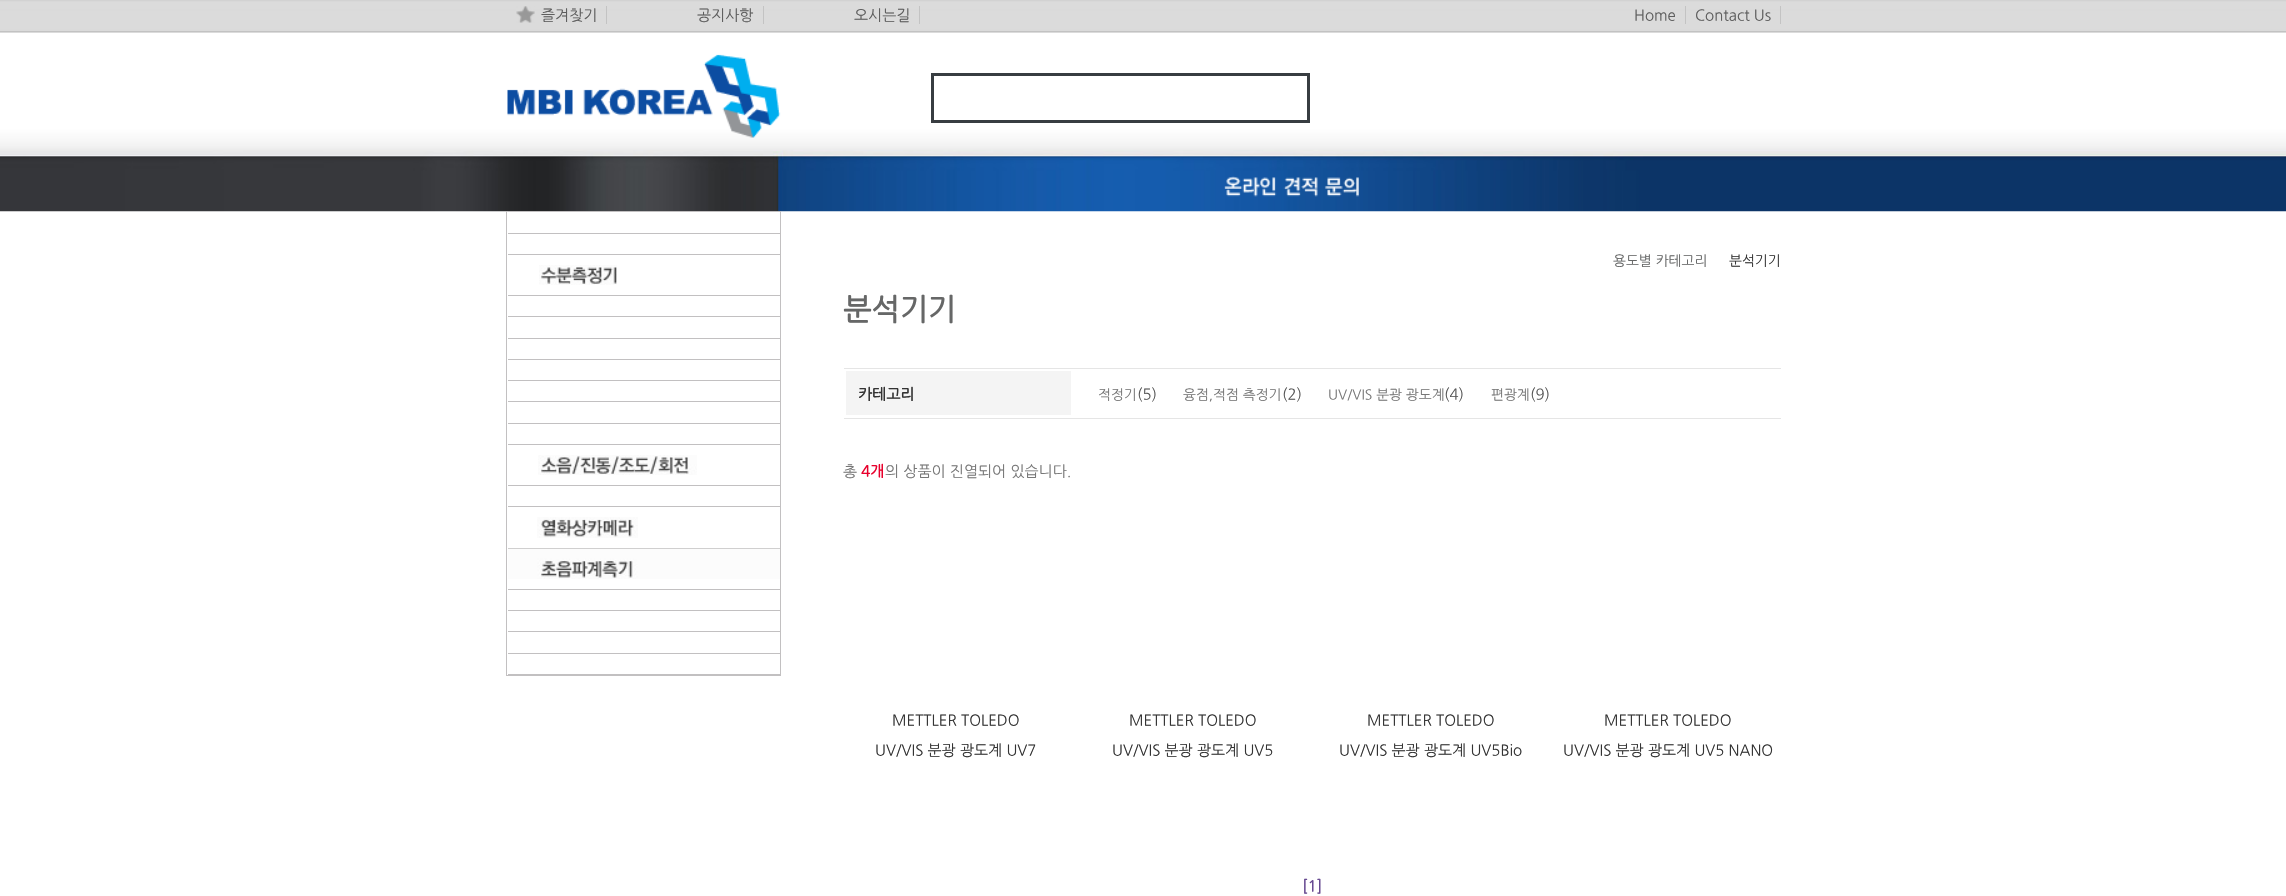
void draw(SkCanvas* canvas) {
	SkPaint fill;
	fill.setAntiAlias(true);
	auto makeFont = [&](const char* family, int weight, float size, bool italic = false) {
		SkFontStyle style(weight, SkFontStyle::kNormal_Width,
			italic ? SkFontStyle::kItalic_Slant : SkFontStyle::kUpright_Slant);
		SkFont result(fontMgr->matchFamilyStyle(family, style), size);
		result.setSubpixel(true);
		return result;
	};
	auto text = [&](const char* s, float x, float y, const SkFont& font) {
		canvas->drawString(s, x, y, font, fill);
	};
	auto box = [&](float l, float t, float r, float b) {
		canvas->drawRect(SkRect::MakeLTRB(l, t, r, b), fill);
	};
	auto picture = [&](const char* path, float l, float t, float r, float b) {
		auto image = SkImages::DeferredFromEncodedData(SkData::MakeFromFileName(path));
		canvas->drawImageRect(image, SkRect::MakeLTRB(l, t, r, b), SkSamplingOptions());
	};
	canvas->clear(0xFFFFFFFF);
	picture("image0.png", 0, 0, 2286, 212);
	picture("image1.png", 516, 6, 535, 23);
	fill.setColor(0xFFC3C3C3);
	box(606, 6, 607, 24);
	box(763, 6, 764, 24);
	box(919, 6, 920, 24);
	box(1685, 6, 1686, 24);
	box(1780, 6, 1781, 24);
	picture("image2.png", 507, 54, 781, 138);
	fill.setStyle(SkPaint::kStroke_Style);
	fill.setStrokeWidth(3);
	fill.setColor(0xFF383D41);
	canvas->drawRect(SkRect::MakeLTRB(932.5f, 74.5f, 1308.5f, 121.5f), fill);
	picture("image3.png", 1224, 176, 1359, 197);
	fill.setStyle(SkPaint::kFill_Style);
	fill.setColor(0xFFC2C0C1);
	box(780, 211, 781, 676);
	box(506, 675, 781, 676);
	box(506, 211, 507, 676);
	box(508, 211, 780, 212);
	box(508, 233, 780, 234);
	box(508, 254, 780, 255);
	picture("image4.png", 539, 265, 617, 285);
	box(508, 295, 780, 296);
	box(508, 316, 780, 317);
	box(508, 338, 780, 339);
	box(508, 359, 780, 360);
	box(508, 380, 780, 381);
	box(508, 401, 780, 402);
	box(508, 423, 780, 424);
	box(508, 444, 780, 445);
	picture("image5.png", 538, 455, 697, 475);
	box(508, 485, 780, 486);
	box(508, 506, 780, 507);
	picture("image6.png", 537, 517, 638, 538);
	box(508, 548, 780, 549);
	picture("image7.png", 508, 548, 780, 579);
	box(508, 589, 780, 590);
	box(508, 610, 780, 611);
	box(508, 631, 780, 632);
	box(508, 653, 780, 654);
	box(508, 674, 780, 675);
	fill.setColor(0xFFE5E5E5);
	box(844, 368, 1781, 369);
	box(844, 418, 1781, 419);
	fill.setColor(0xFFF4F4F4);
	box(846, 371, 1071, 415);
	auto font1 = makeFont("NanumGothic", 400, 15);
	fill.setColor(0xFF5D5D5D);
	text("즐겨찾기", 541, 20, font1);
	text("공지사항", 697, 20, font1);
	text("오시는길", 854, 20, font1);
	text("Home", 1634, 20, font1);
	text("Contact Us", 1695, 20, font1);
	auto font2 = makeFont("NanumGothic", 400, 13.75f);
	fill.setColor(0xFF666767);
	text("용도별 카테고리", 1613, 265, font2);
	fill.setColor(0xFF333333);
	text("분석기기", 1729, 265, font2);
	auto font3 = makeFont("NanumGothic", 700, 30);
	fill.setColor(0xFF666767);
	text("분석기기", 843, 319, font3);
	auto font4 = makeFont("NanumGothic", 700, 15);
	fill.setColor(0xFF333333);
	text("카테고리", 858, 399, font4);
	fill.setColor(0xFF777777);
	text("적정기", 1098, 399, font2);
	fill.setColor(0xFF555555);
	text("(5)", 1137, 399, font1);
	fill.setColor(0xFF777777);
	text("융점,적점 측정기", 1183, 399, font2);
	fill.setColor(0xFF555555);
	text("(2)", 1282, 399, font1);
	fill.setColor(0xFF777777);
	text("UV/VIS 분광 광도계", 1328, 399, font2);
	fill.setColor(0xFF555555);
	text("(4)", 1444, 399, font1);
	fill.setColor(0xFF777777);
	text("편광계", 1491, 399, font2);
	fill.setColor(0xFF555555);
	text("(9)", 1530, 399, font1);
	fill.setColor(0xFF777777);
	text("총", 843, 476, font1);
	fill.setColor(0xFFE8002C);
	text("4개", 861, 476, font4);
	fill.setColor(0xFF777777);
	text("의 상품이 진열되어 있습니다.", 885, 476, font1);
	fill.setColor(0xFF333333);
	text("METTLER TOLEDO", 892, 725, font1);
	text("UV/VIS 분광 광도계 UV7", 875, 755, font1);
	text("METTLER TOLEDO", 1129, 725, font1);
	text("UV/VIS 분광 광도계 UV5", 1112, 755, font1);
	text("METTLER TOLEDO", 1367, 725, font1);
	text("UV/VIS 분광 광도계 UV5Bio", 1339, 755, font1);
	text("METTLER TOLEDO", 1604, 725, font1);
	text("UV/VIS 분광 광도계 UV5 NANO", 1563, 755, font1);
	fill.setColor(0xFF684B92);
	text("[1]", 1302, 891, font4);
}
